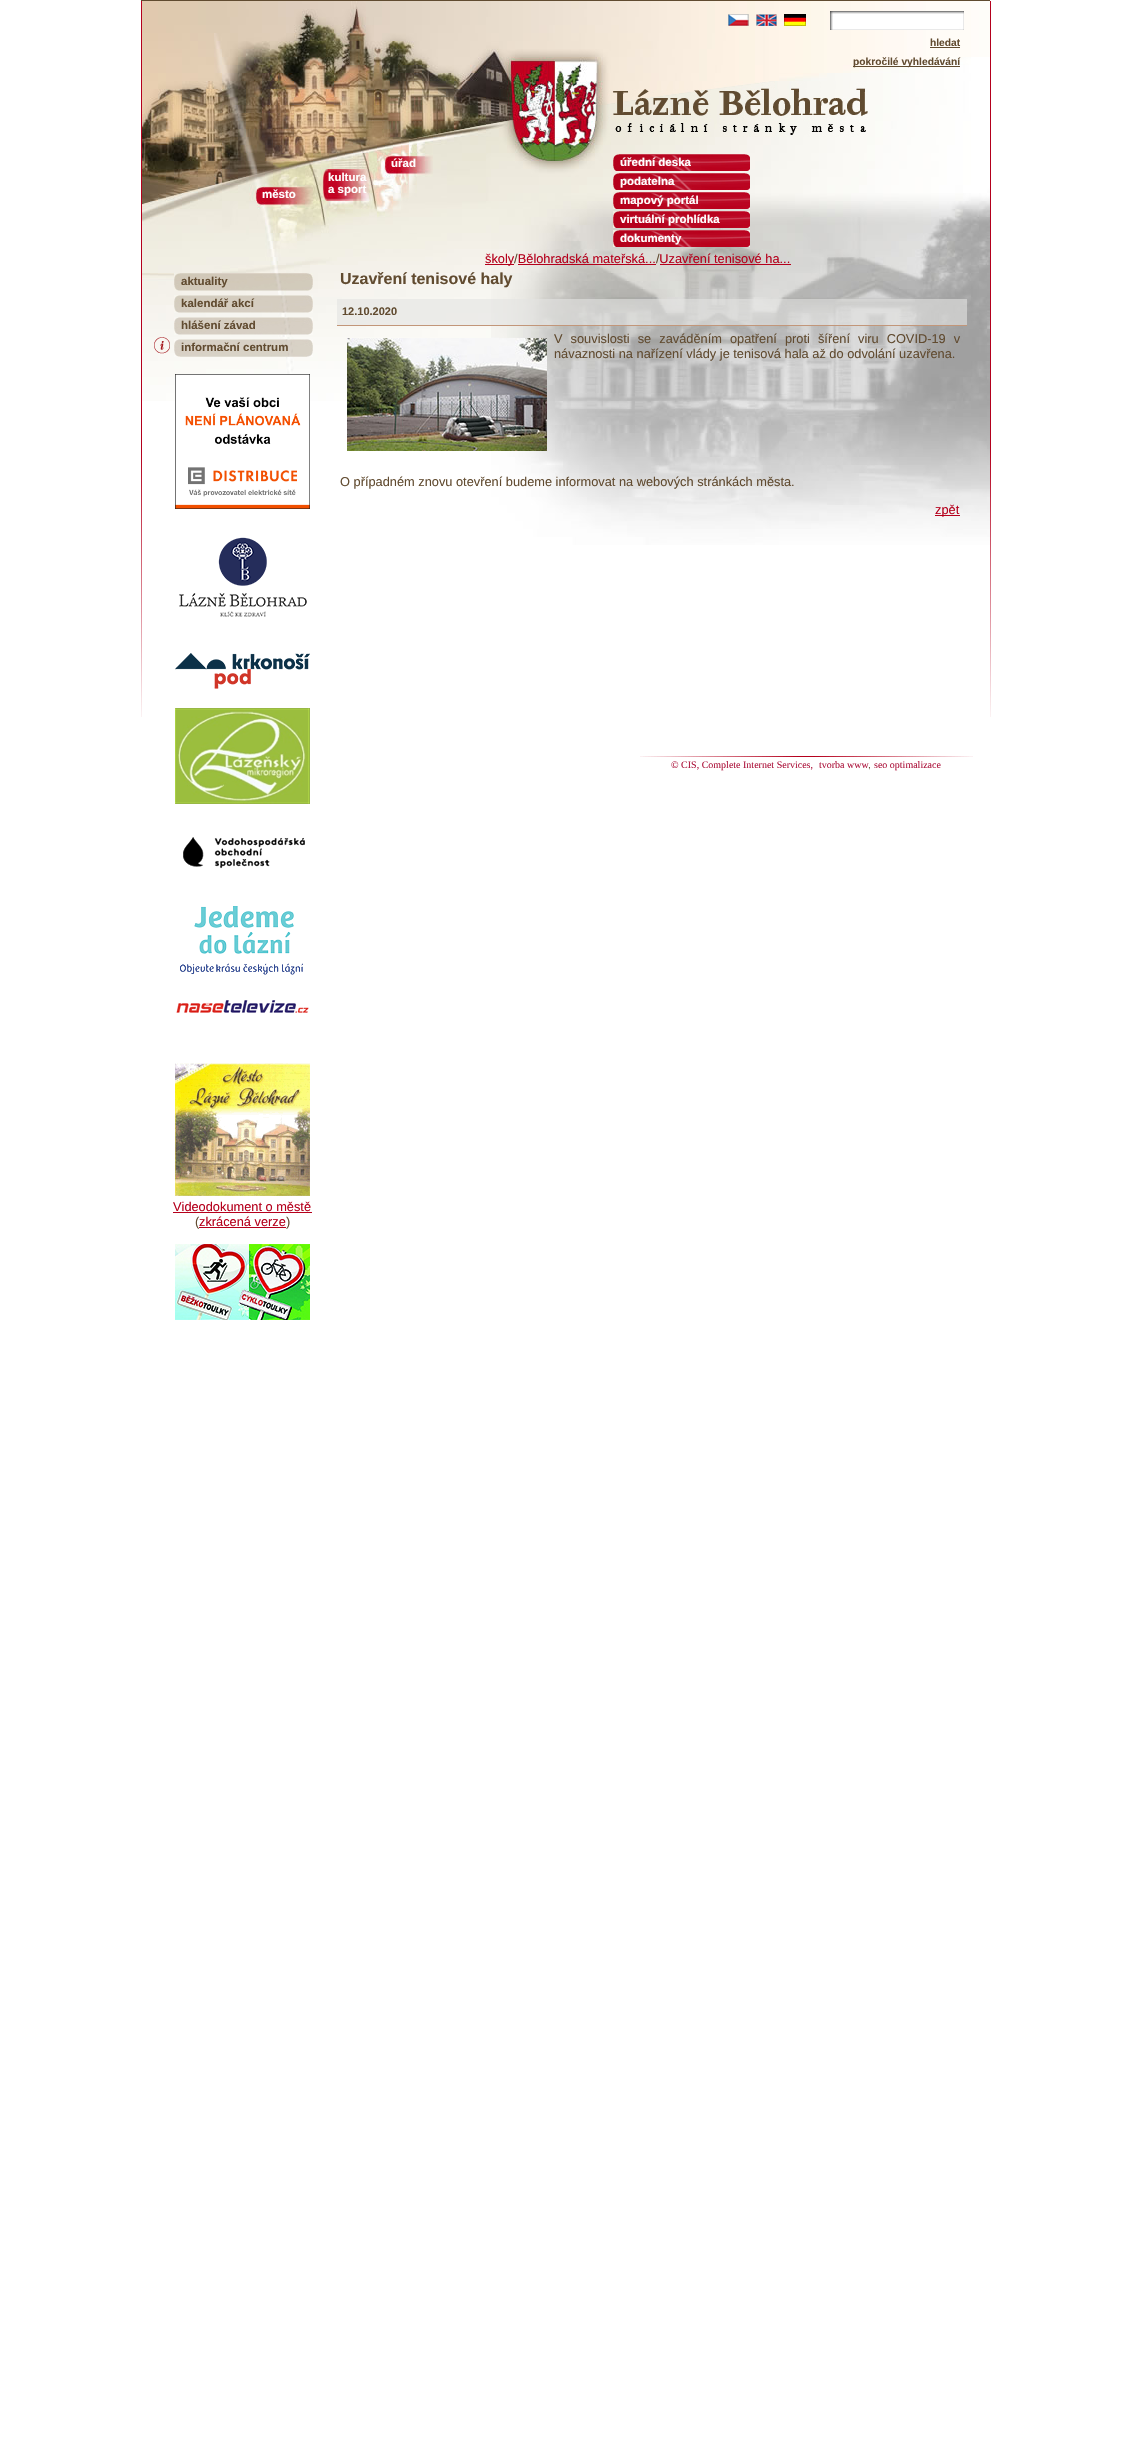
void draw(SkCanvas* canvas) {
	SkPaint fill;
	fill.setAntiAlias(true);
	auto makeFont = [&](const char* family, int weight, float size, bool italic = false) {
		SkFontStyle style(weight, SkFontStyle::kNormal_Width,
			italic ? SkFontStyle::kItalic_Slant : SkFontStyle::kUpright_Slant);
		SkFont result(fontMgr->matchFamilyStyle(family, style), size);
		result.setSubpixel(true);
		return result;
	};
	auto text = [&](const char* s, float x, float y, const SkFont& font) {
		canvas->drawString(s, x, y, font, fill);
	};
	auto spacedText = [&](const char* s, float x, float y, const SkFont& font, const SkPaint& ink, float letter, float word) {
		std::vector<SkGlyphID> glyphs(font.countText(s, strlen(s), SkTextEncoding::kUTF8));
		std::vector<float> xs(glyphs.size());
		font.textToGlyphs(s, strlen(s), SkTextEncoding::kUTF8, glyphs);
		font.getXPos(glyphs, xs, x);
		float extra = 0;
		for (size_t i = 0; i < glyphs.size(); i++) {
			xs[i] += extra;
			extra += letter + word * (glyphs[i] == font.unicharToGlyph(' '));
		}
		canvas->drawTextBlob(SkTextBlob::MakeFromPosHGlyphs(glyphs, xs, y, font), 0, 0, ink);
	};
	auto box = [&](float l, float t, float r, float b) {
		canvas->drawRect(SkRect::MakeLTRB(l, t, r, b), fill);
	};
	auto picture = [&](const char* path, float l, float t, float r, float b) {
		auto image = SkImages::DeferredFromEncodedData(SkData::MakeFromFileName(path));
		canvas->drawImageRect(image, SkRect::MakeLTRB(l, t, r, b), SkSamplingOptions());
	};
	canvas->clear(0xFFFFFFFF);
	fill.setColor(0xFF604B30);
	box(141, 0, 990, 1);
	picture("image0.png", 141, 1, 142, 717);
	picture("image1.png", 142, 1, 491, 401);
	picture("image2.png", 491, 1, 990, 161);
	picture("image0.png", 990, 1, 991, 717);
	picture("image3.png", 728, 14, 749, 26);
	picture("image4.png", 756, 14, 777, 26);
	picture("image5.png", 784, 14, 806, 26);
	picture("image6.png", 830, 11, 964, 30);
	fill.setColor(0xFF614B30);
	box(930, 47, 960, 48);
	box(853, 66, 960, 67);
	picture("image7.png", 607, 81, 868, 137);
	picture("image8.png", 249, 137, 447, 261);
	picture("image10.png", 491, 161, 990, 545);
	picture("image9.png", 613, 154, 750, 171);
	picture("image9.png", 613, 173, 750, 190);
	picture("image9.png", 613, 192, 750, 209);
	picture("image9.png", 613, 211, 750, 228);
	picture("image9.png", 613, 230, 750, 247);
	fill.setColor(0xFFB5001C);
	box(485, 264, 514, 265);
	box(518, 264, 656, 265);
	box(660, 264, 791, 265);
	picture("image11.png", 174, 273, 313, 291);
	picture("image12.png", 174, 295, 313, 313);
	picture("image13.png", 174, 317, 313, 335);
	picture("image14.png", 154, 337, 170, 354);
	picture("image15.png", 174, 339, 313, 357);
	picture("image16.png", 175, 374, 310, 509);
	picture("image17.png", 179, 537, 307, 617);
	picture("image18.png", 175, 653, 310, 689);
	picture("image19.png", 175, 708, 310, 804);
	picture("image20.png", 183, 837, 305, 869);
	picture("image21.png", 180, 906, 303, 975);
	picture("image22.png", 176, 1000, 309, 1013);
	picture("image23.png", 175, 1063, 310, 1196);
	box(173, 1212, 312, 1213);
	box(199, 1227, 286, 1228);
	picture("image24.png", 175, 1244, 310, 1320);
	fill.setColor(0x9CE3E3E2);
	box(337, 299, 967, 325);
	fill.setColor(0xFFC29679);
	box(337, 325, 967, 326);
	picture("image25.png", 347, 338, 547, 451);
	fill.setColor(0xFFB5001C);
	box(935, 515, 960, 516);
	picture("image26.png", 640, 756, 973, 757);
	auto font1 = makeFont("Liberation Sans", 700, 10.25f);
	fill.setColor(0xFF614B30);
	text("hledat", 930, 46, font1);
	text("pokročilé vyhledávání", 853, 65, font1);
	auto font2 = makeFont("Liberation Sans", 700, 11.5f);
	fill.setColor(0xFFFFFFFF);
	text("úřad", 391, 167, font2);
	text("město", 262, 198, font2);
	text("kultura", 328, 181, font2);
	text("a sport", 328, 193, font2);
	text("úřední deska", 620, 166, font2);
	text("podatelna", 620, 185, font2);
	text("mapový portál", 620, 204, font2);
	text("virtuální prohlídka", 620, 223, font2);
	text("dokumenty", 620, 242, font2);
	auto font3 = makeFont("Liberation Sans", 400, 12.8f);
	fill.setColor(0xFFB5001C);
	text("školy Bělohradská mateřská... Uzavření tenisové ha...", 485, 263, font3);
	fill.setColor(0xFF614B30);
	text("/", 514, 263, font3);
	text("/", 656, 263, font3);
	text("aktuality", 181, 285, font2);
	text("kalendář akcí", 181, 307, font2);
	text("hlášení závad", 181, 329, font2);
	text("informační centrum", 181, 351, font2);
	fill.setColor(0xFFB5001C);
	text("Videodokument o městě", 173, 1211, font3);
	fill.setColor(0xFF614B30);
	text("(", 195, 1226, font3);
	fill.setColor(0xFFB5001C);
	text("zkrácená verze", 199, 1226, font3);
	fill.setColor(0xFF614B30);
	text(")", 286, 1226, font3);
	auto font4 = makeFont("Liberation Sans", 700, 16);
	text("Uzavření tenisové haly", 340, 284, font4);
	auto font5 = makeFont("Liberation Sans", 700, 11);
	text("12.10.2020", 342, 315, font5);
	spacedText("V souvislosti se zaváděním opatření proti šíření viru COVID-19 v", 554, 343, font3, fill, 0, 4.5f);
	text("návaznosti na nařízení vlády je tenisová hala až do odvolání uzavřena.", 554, 358, font3);
	text("O případném znovu otevření budeme informovat na webových stránkách města.", 340, 486, font3);
	fill.setColor(0xFFB5001C);
	text("zpět", 935, 514, font3);
	auto font6 = makeFont("Liberation Serif", 400, 10);
	fill.setColor(0xFFAD153D);
	text("© CIS, Complete Internet Services,", 671, 768, font6);
	text("tvorba www", 819, 768, font6);
	auto font7 = makeFont("Liberation Sans", 400, 10);
	fill.setColor(0xFF614B30);
	text(",", 868, 768, font7);
	fill.setColor(0xFFAD153D);
	text("seo optimalizace", 874, 768, font6);
}
